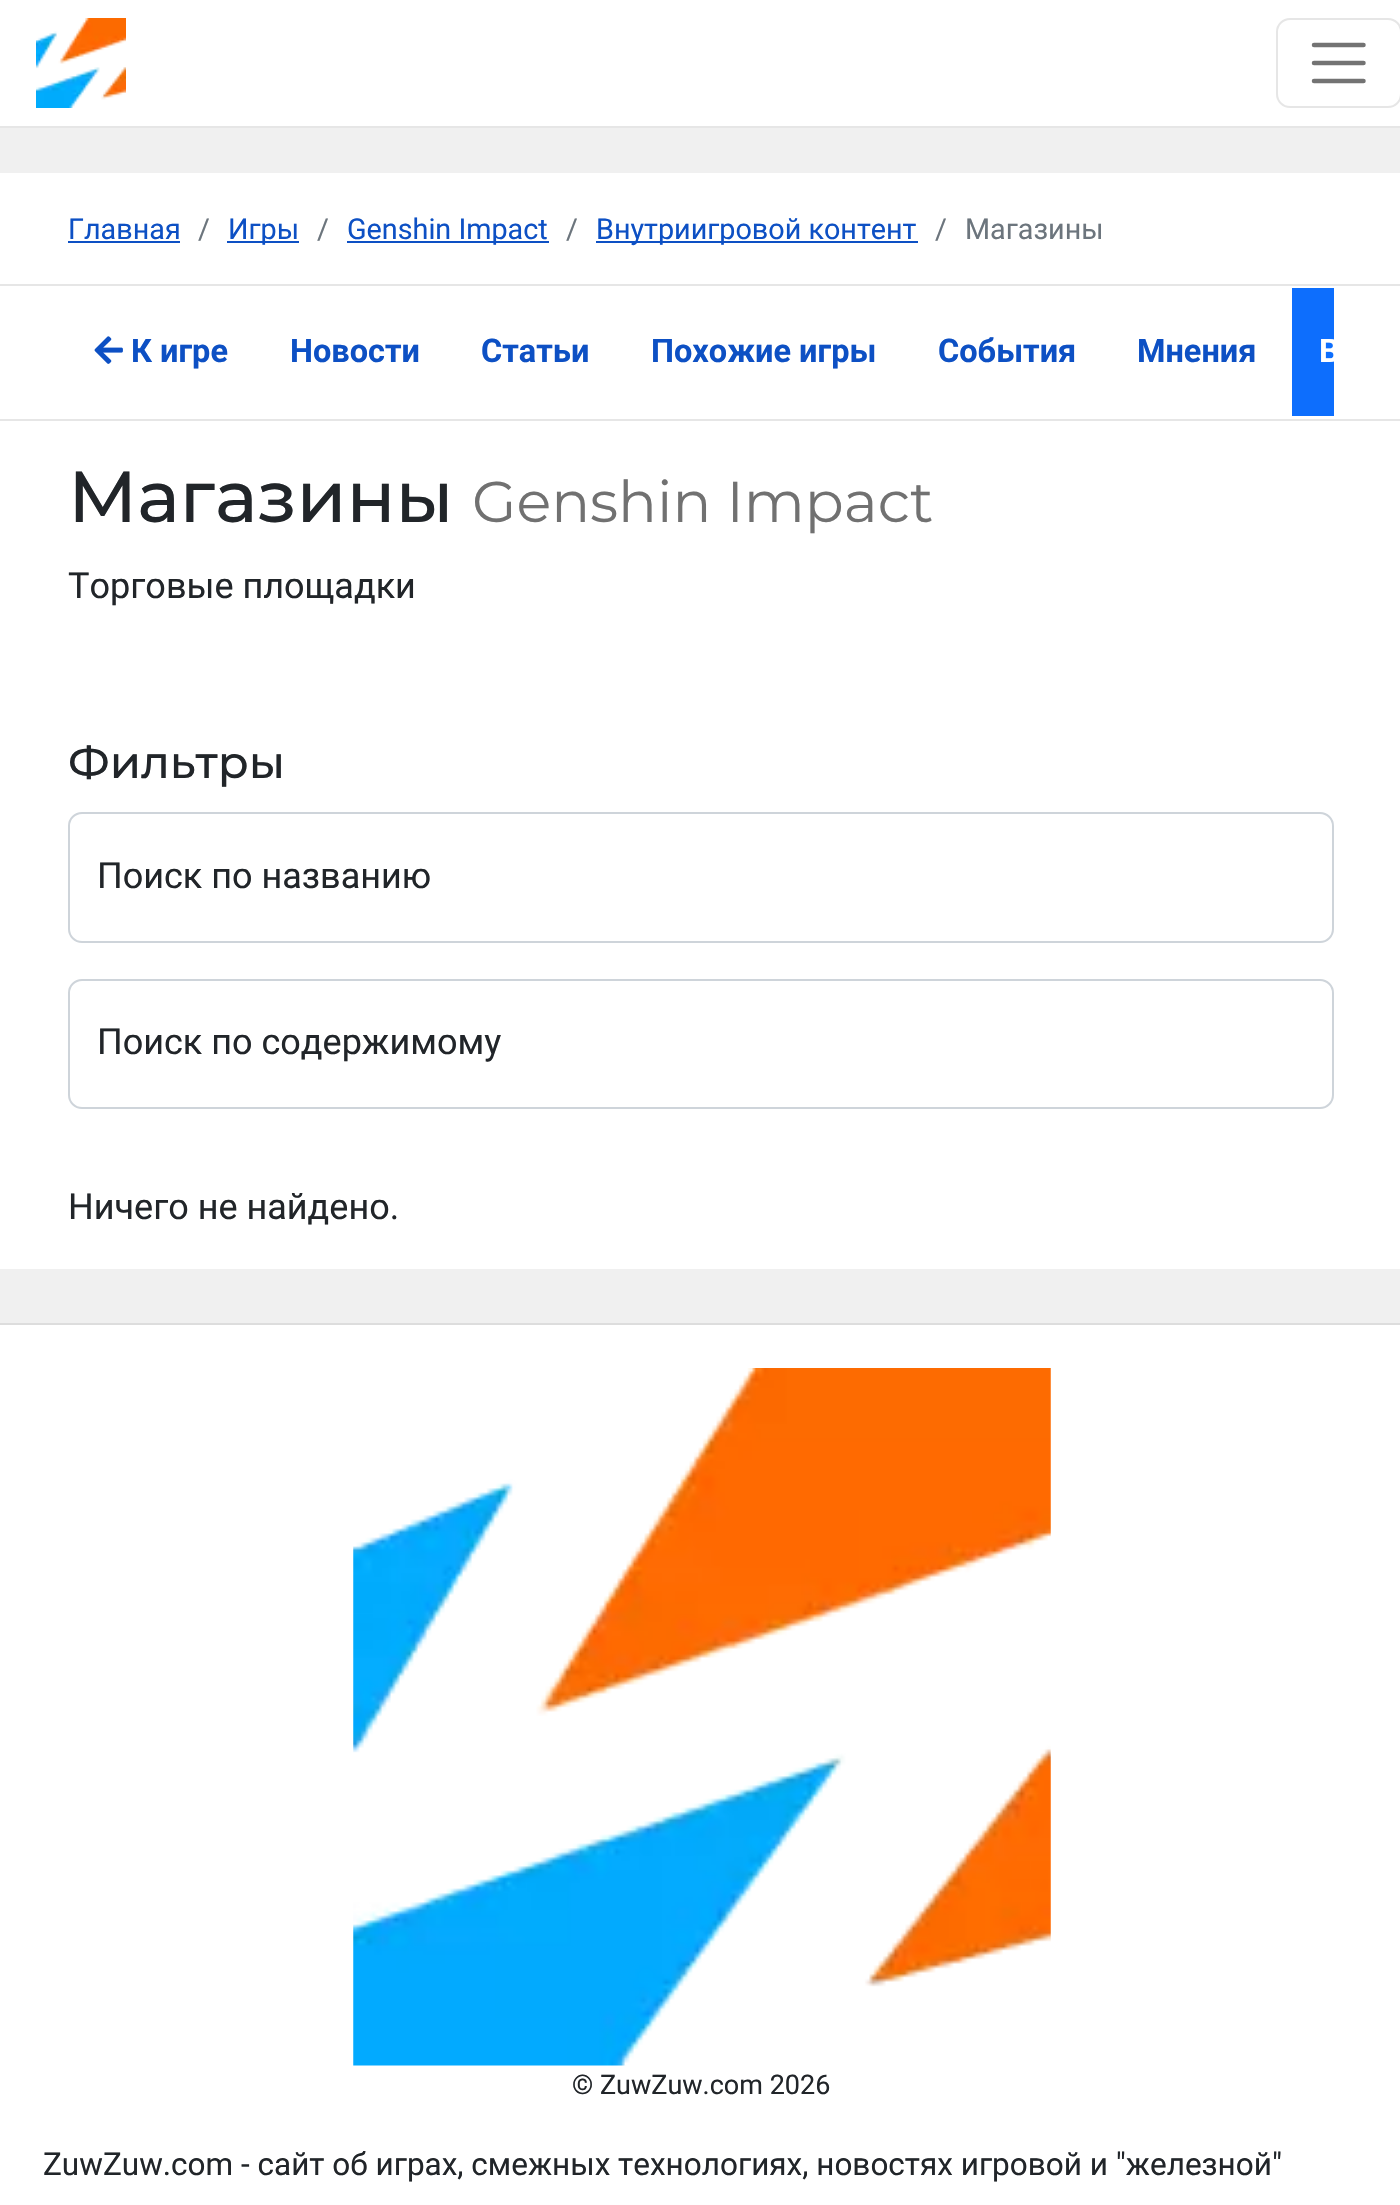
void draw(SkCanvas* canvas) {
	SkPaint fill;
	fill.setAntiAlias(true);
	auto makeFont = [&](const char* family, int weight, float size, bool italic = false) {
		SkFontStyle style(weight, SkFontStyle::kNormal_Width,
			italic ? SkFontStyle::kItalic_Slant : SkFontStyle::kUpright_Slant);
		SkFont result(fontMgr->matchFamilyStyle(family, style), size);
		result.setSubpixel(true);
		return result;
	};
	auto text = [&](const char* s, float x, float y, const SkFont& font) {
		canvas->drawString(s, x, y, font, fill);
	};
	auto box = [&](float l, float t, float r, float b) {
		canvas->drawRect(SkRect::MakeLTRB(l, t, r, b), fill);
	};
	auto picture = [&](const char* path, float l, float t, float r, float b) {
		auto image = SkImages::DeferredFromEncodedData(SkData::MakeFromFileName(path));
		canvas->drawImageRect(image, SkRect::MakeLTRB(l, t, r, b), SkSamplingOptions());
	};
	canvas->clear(0xFFF0F0F0);
	fill.setColor(0xFFFFFFFF);
	box(0, 0, 1400, 126);
	fill.setColor(0xFFE6E6E6);
	box(0, 126, 1400, 128);
	picture("image0.png", 36, 18, 126, 108);
	fill.setStyle(SkPaint::kStroke_Style);
	fill.setStrokeWidth(2);
	canvas->drawRoundRect(SkRect::MakeLTRB(1277, 19, 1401, 107), 13, 13, fill);
	fill.setStrokeWidth(4.5f);
	fill.setStrokeCap(SkPaint::kRound_Cap);
	fill.setColor(0xFF737373);
	canvas->drawPath(SkPathBuilder().moveTo(1314, 45).lineTo(1363.5f, 45).moveTo(1314, 63).lineTo(1363.5f, 63).moveTo(1314, 81).lineTo(1363.5f, 81).detach(), fill);
	fill.setStyle(SkPaint::kFill_Style);
	fill.setColor(0xFFFFFFFF);
	box(0, 173, 1400, 284);
	fill.setColor(0xFFE6E6E6);
	box(0, 284, 1400, 286);
	fill.setColor(0xFF0D50C4);
	box(68, 241, 180, 243);
	box(227, 241, 299, 243);
	box(347, 241, 549, 243);
	box(596, 241, 918, 243);
	fill.setColor(0xFFFFFFFF);
	box(0, 286, 1400, 419);
	fill.setColor(0xFFE6E6E6);
	box(0, 419, 1400, 421);
	picture("image1.png", 94, 336, 123, 364);
	fill.setColor(0xFF0D6EFD);
	box(1292, 288, 1334, 416);
	fill.setColor(0xFFFFFFFF);
	box(0, 421, 1400, 1269);
	fill.setStyle(SkPaint::kStroke_Style);
	fill.setStrokeWidth(2);
	fill.setStrokeCap(SkPaint::kButt_Cap);
	fill.setColor(0xFFCED4DA);
	canvas->drawRoundRect(SkRect::MakeLTRB(69, 813, 1333, 942), 13, 13, fill);
	canvas->drawRoundRect(SkRect::MakeLTRB(69, 980, 1333, 1108), 13, 13, fill);
	fill.setStyle(SkPaint::kFill_Style);
	fill.setColor(0xFFFFFFFF);
	box(0, 1325, 1400, 2205);
	fill.setColor(0xFFDDDDDD);
	box(0, 1323, 1400, 1325);
	picture("image2.png", 353, 1368, 1051, 2066);
	auto font1 = makeFont("Roboto", 400, 28.75f);
	fill.setColor(0xFF0D50C4);
	text("Главная", 68, 239, font1);
	fill.setColor(0xFF6C757D);
	text("/", 198, 239, font1);
	fill.setColor(0xFF0D50C4);
	text("Игры", 228, 239, font1);
	fill.setColor(0xFF6C757D);
	text("/", 317, 239, font1);
	fill.setColor(0xFF0D50C4);
	text("Genshin Impact", 347, 239, font1);
	fill.setColor(0xFF6C757D);
	text("/", 566, 239, font1);
	fill.setColor(0xFF0D50C4);
	text("Внутриигровой контент", 596, 239, font1);
	fill.setColor(0xFF6C757D);
	text("/", 935, 239, font1);
	text("Магазины", 965, 239, font1);
	auto font2 = makeFont("Roboto", 700, 32.5f);
	fill.setColor(0xFF0D50C4);
	text("К игре", 131, 362, font2);
	text("Новости", 290, 362, font2);
	text("Статьи", 481, 362, font2);
	text("Похожие игры", 651, 362, font2);
	text("События", 938, 362, font2);
	text("Мнения", 1137, 362, font2);
	canvas->save();
	canvas->clipRect(SkRect::MakeLTRB(68, 288, 1334, 416));
	fill.setColor(0xFFFFFFFF);
	text("В", 1319, 362, font2);
	canvas->restore();
	auto font3 = makeFont("Montserrat", 500, 72);
	fill.setColor(0xFF212529);
	text("Магазины", 68, 522, font3);
	auto font4 = makeFont("Montserrat", 400, 57.5f);
	fill.setColor(0xFF717171);
	text("Genshin Impact", 472, 522, font4);
	auto font5 = makeFont("Roboto", 400, 36);
	fill.setColor(0xFF212529);
	text("Торговые площадки", 68, 598, font5);
	auto font6 = makeFont("Montserrat", 500, 45);
	text("Фильтры", 68, 778, font6);
	text("Поиск по названию", 97, 888, font5);
	text("Поиск по содержимому", 97, 1054, font5);
	text("Ничего не найдено.", 68, 1219, font5);
	auto font7 = makeFont("Roboto", 400, 27);
	text("© ZuwZuw.com 2026", 572, 2094, font7);
	auto font8 = makeFont("Roboto", 400, 31.5f);
	text("ZuwZuw.com - сайт об играх, смежных технологиях, новостях игровой и \"железной\"", 43, 2175, font8);
}
